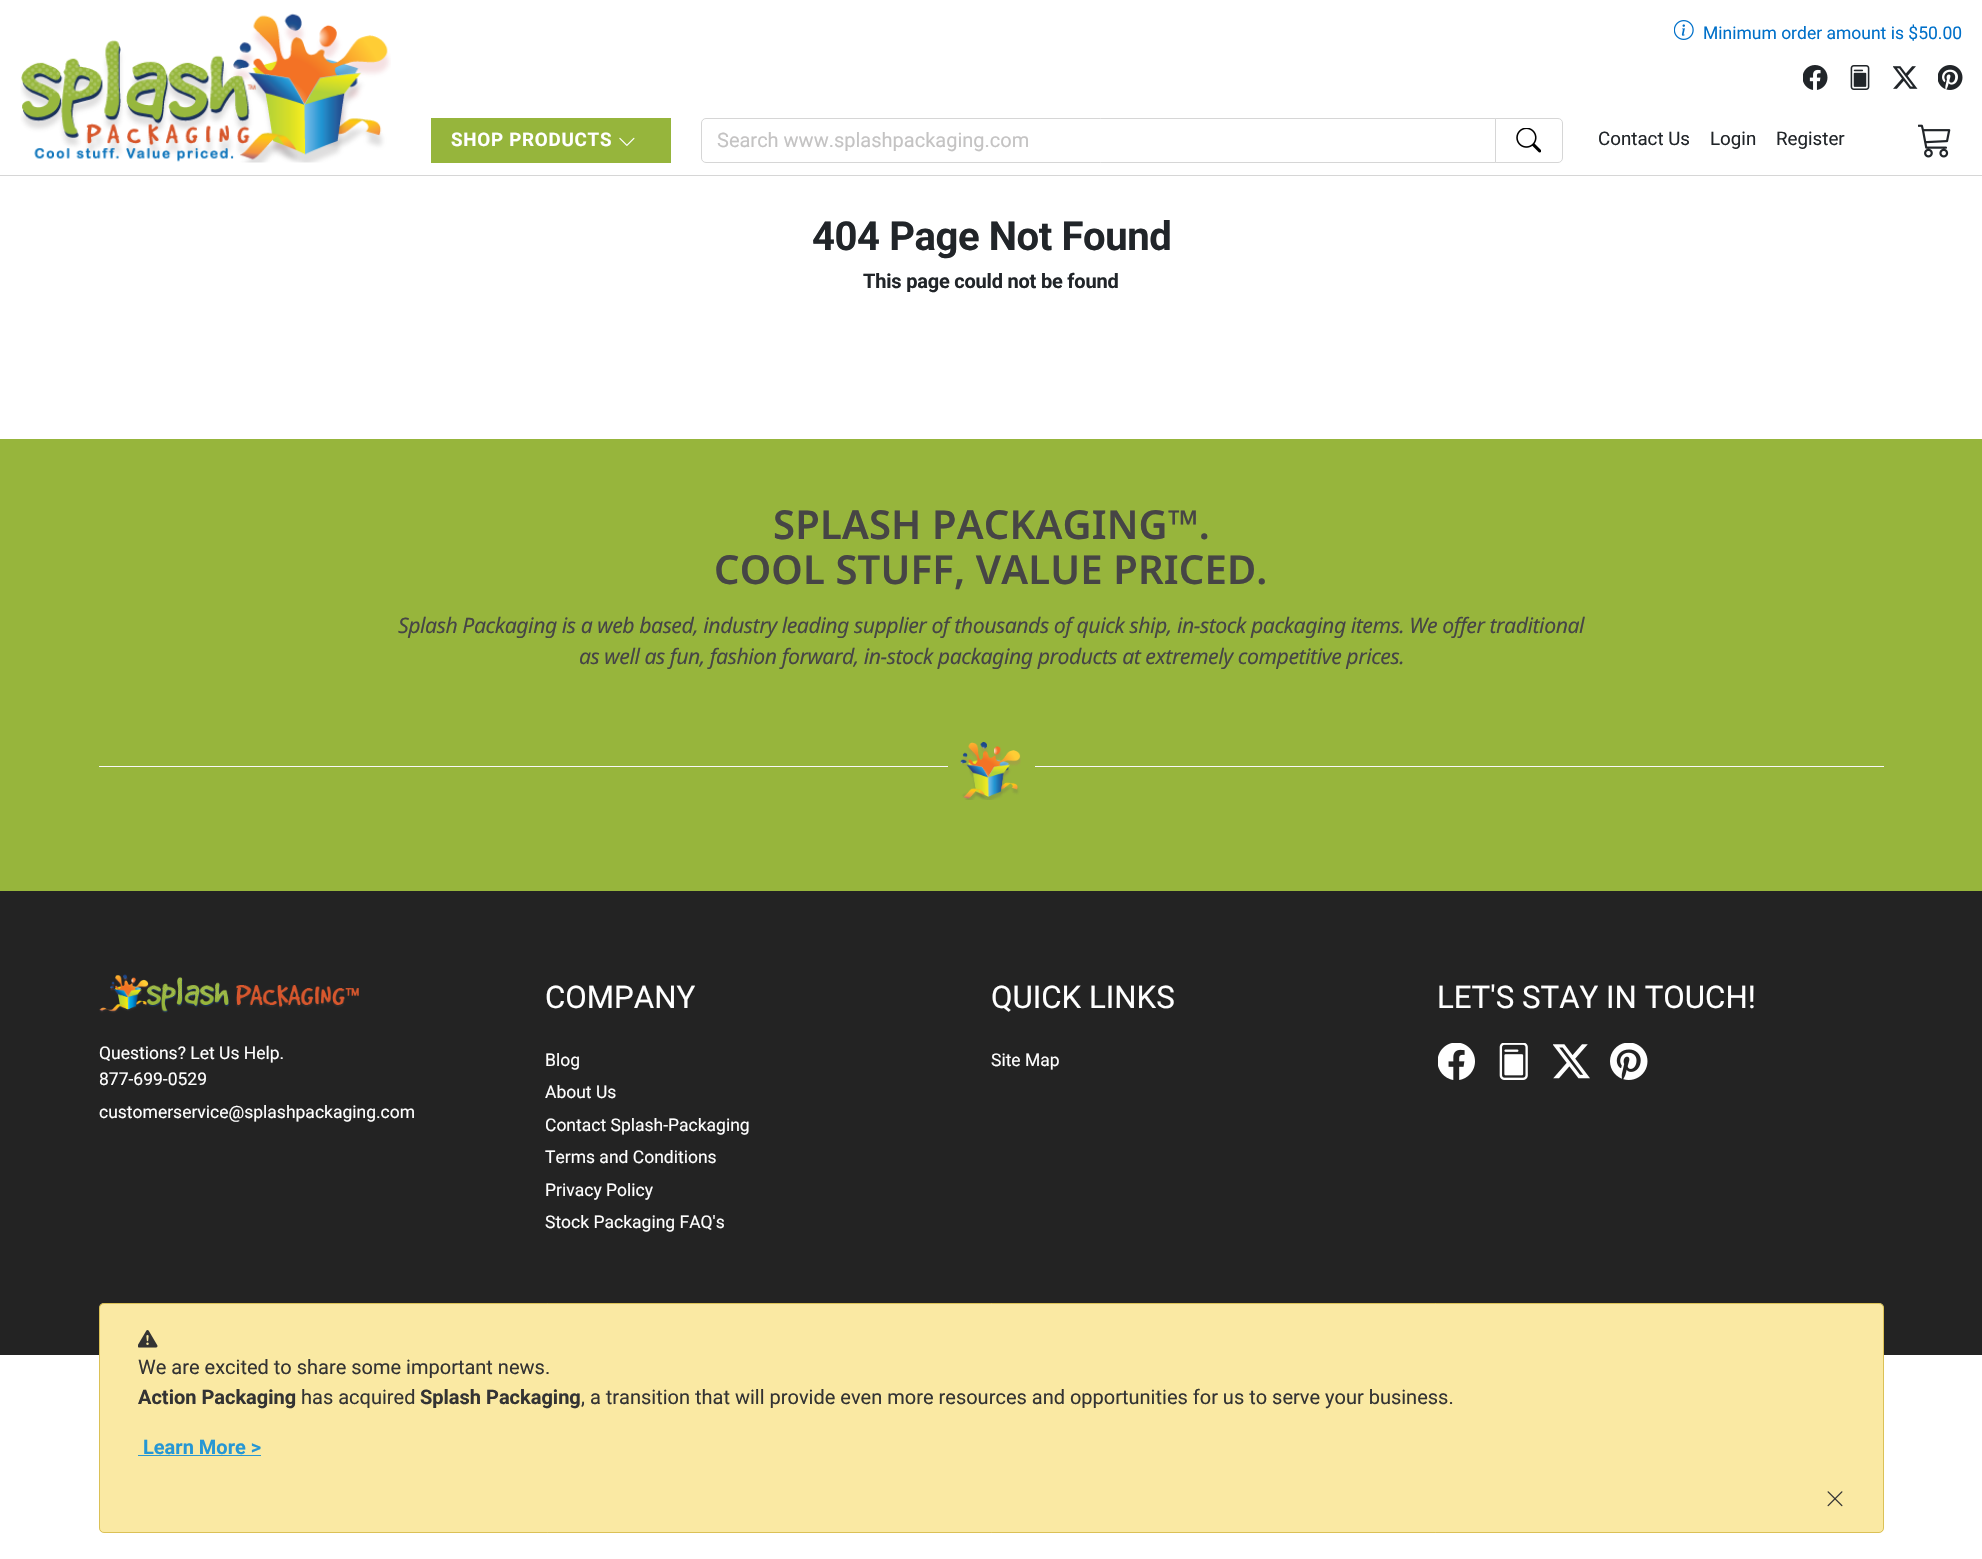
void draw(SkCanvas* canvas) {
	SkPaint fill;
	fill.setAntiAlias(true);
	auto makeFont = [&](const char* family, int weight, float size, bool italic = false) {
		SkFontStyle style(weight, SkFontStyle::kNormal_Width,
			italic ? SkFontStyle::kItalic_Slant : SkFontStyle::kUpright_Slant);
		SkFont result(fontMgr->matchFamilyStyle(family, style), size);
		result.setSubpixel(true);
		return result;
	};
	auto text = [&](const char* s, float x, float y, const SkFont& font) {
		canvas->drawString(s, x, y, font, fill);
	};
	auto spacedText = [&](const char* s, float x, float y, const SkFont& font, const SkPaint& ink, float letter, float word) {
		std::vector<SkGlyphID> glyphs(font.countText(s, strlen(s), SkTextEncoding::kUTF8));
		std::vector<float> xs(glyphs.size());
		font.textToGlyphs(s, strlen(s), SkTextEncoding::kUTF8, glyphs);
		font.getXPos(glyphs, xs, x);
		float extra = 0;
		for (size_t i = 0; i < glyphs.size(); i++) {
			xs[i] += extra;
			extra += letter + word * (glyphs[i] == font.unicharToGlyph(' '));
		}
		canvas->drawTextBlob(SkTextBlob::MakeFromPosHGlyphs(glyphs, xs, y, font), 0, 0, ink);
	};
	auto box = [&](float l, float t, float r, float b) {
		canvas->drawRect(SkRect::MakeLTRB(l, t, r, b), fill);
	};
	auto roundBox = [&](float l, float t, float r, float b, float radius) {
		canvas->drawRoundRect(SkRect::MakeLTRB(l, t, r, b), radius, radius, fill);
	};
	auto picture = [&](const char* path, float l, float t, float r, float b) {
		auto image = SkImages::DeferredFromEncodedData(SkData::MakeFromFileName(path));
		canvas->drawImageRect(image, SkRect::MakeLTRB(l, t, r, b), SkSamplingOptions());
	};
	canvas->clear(0xFFFFFFFF);
	fill.setColor(0xFFD6D6D6);
	box(0, 175, 1982, 176);
	picture("image0.png", 20, 13, 391, 163);
	picture("image1.png", 1674, 20, 1694, 40);
	picture("image2.png", 1803, 65, 1828, 90);
	picture("image3.png", 1850, 65, 1870, 90);
	picture("image4.png", 1893, 66, 1918, 89);
	picture("image5.png", 1938, 65, 1963, 90);
	fill.setColor(0xFF96B53C);
	box(431, 118, 671, 163);
	picture("image6.png", 619, 137, 635, 146);
	fill.setStyle(SkPaint::kStroke_Style);
	fill.setStrokeWidth(1);
	fill.setColor(0xFFD6D6D6);
	canvas->drawPath(SkPathBuilder().moveTo(706, 118.5f).lineTo(1495.5f, 118.5f).lineTo(1495.5f, 162.5f).lineTo(706, 162.5f).cubicTo(703.5f, 162.5f, 701.5f, 160.5f, 701.5f, 158).lineTo(701.5f, 123).cubicTo(701.5f, 120.5f, 703.5f, 118.5f, 706, 118.5f).close().detach(), fill);
	fill.setStyle(SkPaint::kFill_Style);
	fill.setColor(0xFFFFFFFF);
	canvas->drawPath(SkPathBuilder().moveTo(1495.5f, 118.5f).lineTo(1558, 118.5f).cubicTo(1560.5f, 118.5f, 1562.5f, 120.5f, 1562.5f, 123).lineTo(1562.5f, 158).cubicTo(1562.5f, 160.5f, 1560.5f, 162.5f, 1558, 162.5f).lineTo(1495.5f, 162.5f).close().detach(), fill);
	fill.setStyle(SkPaint::kStroke_Style);
	fill.setColor(0xFFD6D6D6);
	canvas->drawPath(SkPathBuilder().moveTo(1495.5f, 118.5f).lineTo(1558, 118.5f).cubicTo(1560.5f, 118.5f, 1562.5f, 120.5f, 1562.5f, 123).lineTo(1562.5f, 158).cubicTo(1562.5f, 160.5f, 1560.5f, 162.5f, 1558, 162.5f).lineTo(1495.5f, 162.5f).close().detach(), fill);
	picture("image7.png", 1516, 128, 1541, 153);
	picture("image8.png", 1918, 124, 1951, 158);
	fill.setStyle(SkPaint::kFill_Style);
	fill.setColor(0xFF232323);
	box(0, 891, 1982, 1355);
	fill.setColor(0xFFFAE9A3);
	roundBox(99, 1303, 1884, 1533, 5);
	fill.setStyle(SkPaint::kStroke_Style);
	fill.setColor(0x78B99501);
	canvas->drawRoundRect(SkRect::MakeLTRB(99.5f, 1303.5f, 1883.5f, 1532.5f), 4.5f, 4.5f, fill);
	picture("image9.png", 138, 1330, 158, 1348);
	fill.setStyle(SkPaint::kFill_Style);
	fill.setColor(0xFF2697D4);
	box(138, 1455, 261, 1456);
	picture("image10.png", 1827, 1491, 1843, 1507);
	fill.setColor(0xFF97B53C);
	box(0, 439, 1982, 891);
	fill.setColor(0xFFF8F8F8);
	box(99, 766, 1884, 767);
	fill.setColor(0xFF97B53C);
	box(948, 766, 1035, 767);
	picture("image11.png", 960, 741, 1021, 800);
	picture("image12.png", 1438, 1043, 1475, 1080);
	picture("image13.png", 1499, 1043, 1528, 1080);
	picture("image14.png", 1553, 1044, 1590, 1079);
	picture("image15.png", 1610, 1043, 1648, 1080);
	picture("image16.png", 99, 974, 359, 1013);
	auto font1 = makeFont("Roboto", 400, 17.5f);
	fill.setColor(0xFF0070C9);
	text("Minimum order amount is $50.00", 1703, 39, font1);
	auto font2 = makeFont("Roboto", 700, 18.75f);
	fill.setColor(0xFFFFFFFF);
	spacedText("SHOP PRODUCTS", 451, 146, font2, fill, 0.75f, 0);
	auto font3 = makeFont("Roboto", 400, 20);
	fill.setColor(0xFFC4C3C3);
	text("Search www.splashpackaging.com", 717, 147, font3);
	auto font4 = makeFont("Roboto", 400, 18.75f);
	fill.setColor(0xFF212529);
	text("Contact Us", 1598, 145, font4);
	text("Login", 1710, 145, font4);
	text("Register", 1776, 145, font4);
	fill.setColor(0xFF333333);
	text("We are excited to share some important news.", 138, 1374, font3);
	auto font5 = makeFont("Roboto", 700, 20);
	text("Action Packaging", 138, 1404, font5);
	text("has acquired", 301, 1404, font3);
	text("Splash Packaging", 420, 1404, font5);
	text(", a transition that will provide even more resources and opportunities for us to serve your business.", 581, 1404, font3);
	fill.setColor(0xFF2697D4);
	text("Learn More >", 143, 1454, font5);
	auto font6 = makeFont("Roboto", 700, 40);
	fill.setColor(0xFF212529);
	spacedText("404 Page Not Found", 812, 250, font6, fill, -0.4f, 0);
	spacedText("This page could not be found", 863, 288, font5, fill, -0.2f, 0);
	auto font7 = makeFont("Noto Sans", 600, 40);
	fill.setColor(0xFF464545);
	spacedText("SPLASH PACKAGING™.", 773, 539, font7, fill, 0.15f, 0);
	spacedText("COOL STUFF, VALUE PRICED.", 714, 584, font7, fill, 0.15f, 0);
	auto font8 = makeFont("Noto Sans", 400, 21.25f, true);
	spacedText("Splash Packaging is a web based, industry leading supplier of thousands of quick ship, in-stock packaging items. We offer traditional", 398, 633, font8, fill, -0.47f, 0);
	spacedText("as well as fun, fashion forward, in-stock packaging products at extremely competitive prices.", 579, 664, font8, fill, -0.47f, 0);
	auto font9 = makeFont("Roboto", 400, 31.25f);
	fill.setColor(0xFFFFFFFF);
	text("COMPANY", 545, 1008, font9);
	text("Blog", 545, 1066, font1);
	text("About Us", 545, 1098, font1);
	text("Contact Splash-Packaging", 545, 1131, font1);
	text("Terms and Conditions", 545, 1163, font1);
	text("Privacy Policy", 545, 1196, font1);
	text("Stock Packaging FAQ's", 545, 1228, font1);
	text("QUICK LINKS", 991, 1008, font9);
	text("Site Map", 991, 1066, font1);
	text("LET'S STAY IN TOUCH!", 1437, 1008, font9);
	text("Questions? Let Us Help.", 99, 1059, font1);
	text("877-699-0529", 99, 1085, font1);
	text("customerservice@splashpackaging.com", 99, 1118, font1);
}
